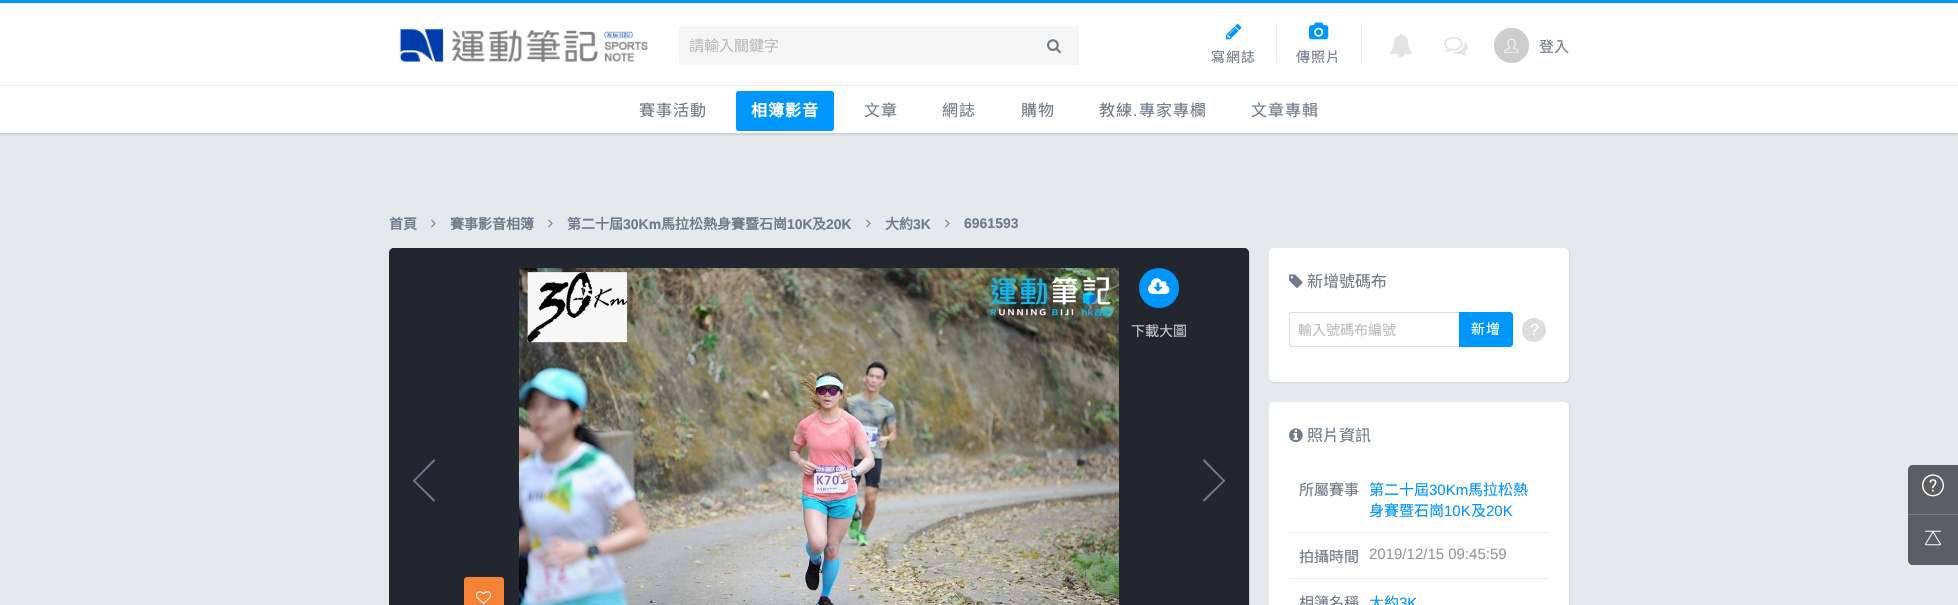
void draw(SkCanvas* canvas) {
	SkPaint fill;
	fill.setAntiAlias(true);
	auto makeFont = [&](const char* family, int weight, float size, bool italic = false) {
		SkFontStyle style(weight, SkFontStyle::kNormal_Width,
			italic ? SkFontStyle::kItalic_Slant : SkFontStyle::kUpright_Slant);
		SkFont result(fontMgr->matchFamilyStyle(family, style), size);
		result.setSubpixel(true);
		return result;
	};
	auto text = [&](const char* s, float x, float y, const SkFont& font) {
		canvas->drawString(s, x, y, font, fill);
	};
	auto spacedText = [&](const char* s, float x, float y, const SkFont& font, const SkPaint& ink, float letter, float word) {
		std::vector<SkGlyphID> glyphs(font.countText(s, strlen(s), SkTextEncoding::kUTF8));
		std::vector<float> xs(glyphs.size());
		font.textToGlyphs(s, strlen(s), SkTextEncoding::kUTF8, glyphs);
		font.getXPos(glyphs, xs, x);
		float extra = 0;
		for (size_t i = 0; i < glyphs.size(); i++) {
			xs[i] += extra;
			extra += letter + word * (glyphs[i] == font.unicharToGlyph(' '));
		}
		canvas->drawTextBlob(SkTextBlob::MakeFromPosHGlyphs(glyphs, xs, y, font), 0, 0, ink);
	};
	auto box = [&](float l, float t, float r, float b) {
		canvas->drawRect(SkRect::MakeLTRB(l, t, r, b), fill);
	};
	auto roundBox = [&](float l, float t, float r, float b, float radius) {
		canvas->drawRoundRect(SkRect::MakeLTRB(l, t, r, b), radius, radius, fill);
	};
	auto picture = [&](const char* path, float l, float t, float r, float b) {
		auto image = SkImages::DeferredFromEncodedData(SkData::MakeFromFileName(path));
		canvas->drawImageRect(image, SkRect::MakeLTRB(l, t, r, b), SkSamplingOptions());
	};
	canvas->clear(0xFFE5E9EC);
	fill.setColor(0xFF0096FF);
	box(0, 0, 1958, 3);
	fill.setColor(0x1A000000);
	fill.setMaskFilter(SkMaskFilter::MakeBlur(kNormal_SkBlurStyle, 1));
	canvas->drawRect(SkRect::MakeLTRB(0, 5, 1958, 135), fill);
	fill.setMaskFilter(nullptr);
	fill.setColor(0xFFFFFFFF);
	box(0, 3, 1958, 133);
	fill.setColor(0xFFEAECF1);
	box(0, 85, 1958, 86);
	picture("image0.png", 399, 28, 648, 63);
	fill.setColor(0xFFF5F5F5);
	roundBox(679, 26, 1079, 65, 3);
	picture("image1.png", 1047, 39, 1061, 54);
	picture("image2.png", 1390, 33, 1412, 58);
	picture("image3.png", 1444, 37, 1468, 56);
	fill.setColor(0xFFE5E9EC);
	canvas->drawCircle(1511.5f, 45.5f, 17.5f, fill);
	picture("image4.png", 1494, 28, 1529, 63);
	picture("image5.png", 1226, 24, 1242, 40);
	fill.setColor(0xFFEAECF1);
	box(1276, 23, 1277, 63);
	picture("image6.png", 1309, 22, 1329, 40);
	box(1361, 23, 1362, 63);
	fill.setColor(0xFF0096FF);
	roundBox(736, 91, 834, 131, 3);
	picture("image7.png", 431, 219, 436, 228);
	picture("image7.png", 548, 219, 553, 228);
	picture("image7.png", 866, 219, 871, 228);
	picture("image7.png", 945, 219, 950, 228);
	fill.setColor(0x1A22262E);
	fill.setMaskFilter(SkMaskFilter::MakeBlur(kNormal_SkBlurStyle, 0.5f));
	canvas->drawRoundRect(SkRect::MakeLTRB(390, 249, 1250, 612), 5, 5, fill);
	fill.setMaskFilter(nullptr);
	fill.setColor(0xFF22262E);
	canvas->drawPath(SkPathBuilder().moveTo(394, 248).lineTo(1244, 248).cubicTo(1247, 248, 1249, 250, 1249, 253).lineTo(1249, 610).lineTo(389, 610).lineTo(389, 253).cubicTo(389, 250, 391, 248, 394, 248).close().detach(), fill);
	picture("image8.png", 519, 268, 1119, 605);
	fill.setColor(0xFF0096FF);
	canvas->drawCircle(1159, 288, 20, fill);
	picture("image9.png", 1148, 278, 1170, 294);
	fill.setColor(0xFFF68236);
	canvas->drawRoundRect(SkRect::MakeLTRB(464.5f, 577.5f, 503.5f, 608.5f), 2.5f, 2.5f, fill);
	fill.setStyle(SkPaint::kStroke_Style);
	fill.setStrokeWidth(1);
	canvas->drawRoundRect(SkRect::MakeLTRB(464.5f, 577.5f, 503.5f, 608.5f), 2.5f, 2.5f, fill);
	picture("image10.png", 476, 591, 491, 604);
	fill.setStyle(SkPaint::kFill_Style);
	fill.setColor(0xFF6F7B8A);
	canvas->drawPath(SkPathBuilder().moveTo(433, 460).lineTo(413.5f, 480).lineTo(413, 481).cubicTo(413.5f, 481.5f, 414, 481.5f, 414.5f, 481.5f).lineTo(435, 461).cubicTo(435, 460, 434, 459, 433, 460).close().detach(), fill);
	canvas->drawPath(SkPathBuilder().moveTo(434.5f, 499.5f).lineTo(414.5f, 480).lineTo(413.5f, 479.5f).cubicTo(413, 480, 413, 480.5f, 413, 481).lineTo(433.5f, 501.5f).cubicTo(434.5f, 501.5f, 435.5f, 500.5f, 434.5f, 499.5f).close().detach(), fill);
	canvas->drawPath(SkPathBuilder().moveTo(1205, 460).lineTo(1224.5f, 480).lineTo(1225, 481).cubicTo(1224.5f, 481.5f, 1224, 481.5f, 1223.5f, 481.5f).lineTo(1203, 461).cubicTo(1203, 460, 1204, 459, 1205, 460).close().detach(), fill);
	canvas->drawPath(SkPathBuilder().moveTo(1203.5f, 499.5f).lineTo(1223.5f, 480).lineTo(1224.5f, 479.5f).cubicTo(1225, 480, 1225, 480.5f, 1225, 481).lineTo(1204.5f, 501.5f).cubicTo(1203.5f, 501.5f, 1202.5f, 500.5f, 1203.5f, 499.5f).close().detach(), fill);
	fill.setColor(0x1A22262E);
	fill.setMaskFilter(SkMaskFilter::MakeBlur(kNormal_SkBlurStyle, 0.5f));
	canvas->drawRoundRect(SkRect::MakeLTRB(1270, 249, 1570, 383), 5, 5, fill);
	fill.setMaskFilter(nullptr);
	fill.setColor(0xFFFFFFFF);
	roundBox(1269, 248, 1569, 382, 5);
	picture("image11.png", 1289, 274, 1303, 288);
	fill.setColor(0xFFDDDDDD);
	canvas->drawPath(SkPathBuilder(SkPathFillType::kEvenOdd).moveTo(1292, 312).lineTo(1459, 312).lineTo(1459, 347).lineTo(1292, 347).cubicTo(1290, 347, 1289, 346, 1289, 344).lineTo(1289, 315).cubicTo(1289, 313, 1290, 312, 1292, 312).close().moveTo(1292, 313).lineTo(1459, 313).lineTo(1459, 346).lineTo(1292, 346).cubicTo(1291, 346, 1290, 345, 1290, 344).lineTo(1290, 315).cubicTo(1290, 314, 1291, 313, 1292, 313).close().detach(), fill);
	fill.setColor(0xFF0096FF);
	canvas->drawPath(SkPathBuilder().moveTo(1459, 312).lineTo(1510, 312).cubicTo(1511.5f, 312, 1513, 313.5f, 1513, 315).lineTo(1513, 344).cubicTo(1513, 345.5f, 1511.5f, 347, 1510, 347).lineTo(1459, 347).close().detach(), fill);
	fill.setColor(0xFFDDDDDD);
	canvas->drawCircle(1534, 330, 12, fill);
	fill.setColor(0x1A22262E);
	fill.setMaskFilter(SkMaskFilter::MakeBlur(kNormal_SkBlurStyle, 0.5f));
	canvas->drawRoundRect(SkRect::MakeLTRB(1270, 403, 1570, 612), 5, 5, fill);
	fill.setMaskFilter(nullptr);
	fill.setColor(0xFFFFFFFF);
	roundBox(1269, 402, 1569, 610, 5);
	picture("image12.png", 1289, 428, 1303, 443);
	fill.setColor(0xFFEAECF1);
	box(1289, 532, 1549, 533);
	box(1289, 578, 1549, 579);
	fill.setColor(0xFF5D5E5F);
	canvas->drawPath(SkPathBuilder().moveTo(1913, 465).lineTo(1958, 465).lineTo(1958, 565).lineTo(1913, 565).cubicTo(1910, 565, 1908, 563, 1908, 560).lineTo(1908, 470).cubicTo(1908, 467, 1910, 465, 1913, 465).close().detach(), fill);
	fill.setColor(0xFF7D7E7F);
	box(1908, 514, 1958, 515);
	picture("image13.png", 1922, 474, 1944, 497);
	picture("image14.png", 1925, 530, 1941, 546);
	auto font1 = makeFont("Noto Sans CJK TC", 400, 15);
	fill.setColor(0xFFBBBBBB);
	text("請輸入關鍵字", 689, 51, font1);
	fill.setColor(0xFF6F7B8A);
	text("登入", 1539, 52, font1);
	auto font2 = makeFont("Noto Sans CJK TC", 400, 14);
	spacedText("寫網誌", 1211, 62, font2, fill, 1, 0);
	spacedText("傳照片", 1296, 62, font2, fill, 1, 0);
	auto font3 = makeFont("Noto Sans CJK TC", 400, 16);
	spacedText("賽事活動", 639, 116, font3, fill, 1, 0);
	auto font4 = makeFont("Noto Sans CJK TC", 700, 16);
	fill.setColor(0xFFFFFFFF);
	spacedText("相簿影音", 751, 116, font4, fill, 1, 0);
	fill.setColor(0xFF6F7B8A);
	spacedText("文章", 864, 116, font3, fill, 1, 0);
	spacedText("網誌", 942, 116, font3, fill, 1, 0);
	spacedText("購物", 1021, 116, font3, fill, 1, 0);
	spacedText("教練", 1099, 116, font3, fill, 1, 0);
	auto font5 = makeFont("Liberation Sans", 400, 16);
	spacedText(".", 1133, 116, font5, fill, 1, 0);
	spacedText("專家專欄", 1139, 116, font3, fill, 1, 0);
	spacedText("文章專輯", 1251, 116, font3, fill, 1, 0);
	auto font6 = makeFont("Noto Sans CJK TC", 700, 14);
	text("首頁", 389, 229, font6);
	text("賽事影音相簿", 450, 229, font6);
	text("第二十屆", 567, 229, font6);
	auto font7 = makeFont("Liberation Sans", 700, 14);
	text("30Km", 623, 229, font7);
	text("馬拉松熱身賽暨石崗", 661, 229, font6);
	text("10K", 787, 229, font7);
	text("及", 812, 229, font6);
	text("20K", 826, 229, font7);
	text("大約", 885, 229, font6);
	text("3K", 913, 229, font7);
	text("6961593", 964, 228, font7);
	fill.setColor(0xFFC8C8C8);
	text("下載大圖", 1131, 336, font2);
	fill.setColor(0xFF6F7B8A);
	text("新增號碼布", 1307, 287, font3);
	fill.setColor(0xFFBBBBBB);
	text("輸入號碼布編號", 1298, 335, font2);
	fill.setColor(0xFFFFFFFF);
	spacedText("新增", 1471, 334, font2, fill, 1, 0);
	text("?", 1530, 335, font5);
	fill.setColor(0xFF6F7B8A);
	text("照片資訊", 1307, 441, font3);
	text("所屬賽事", 1299, 495, font1);
	fill.setColor(0xFF0096FF);
	text("第二十屆", 1369, 495, font1);
	auto font8 = makeFont("Liberation Sans", 400, 15);
	text("30Km", 1429, 495, font8);
	text("馬拉松熱", 1468, 495, font1);
	text("身賽暨石崗", 1369, 516, font1);
	text("10K", 1444, 516, font8);
	text("及", 1471, 516, font1);
	text("20K", 1486, 516, font8);
	fill.setColor(0xFF6F7B8A);
	text("拍攝時間", 1299, 562, font1);
	fill.setColor(0xFF95989A);
	text("2019/12/15 09:45:59", 1369, 559, font8);
	fill.setColor(0xFF6F7B8A);
	text("相簿名稱", 1299, 608, font1);
	fill.setColor(0xFF0096FF);
	text("大約", 1369, 608, font1);
	text("3K", 1399, 608, font8);
}
